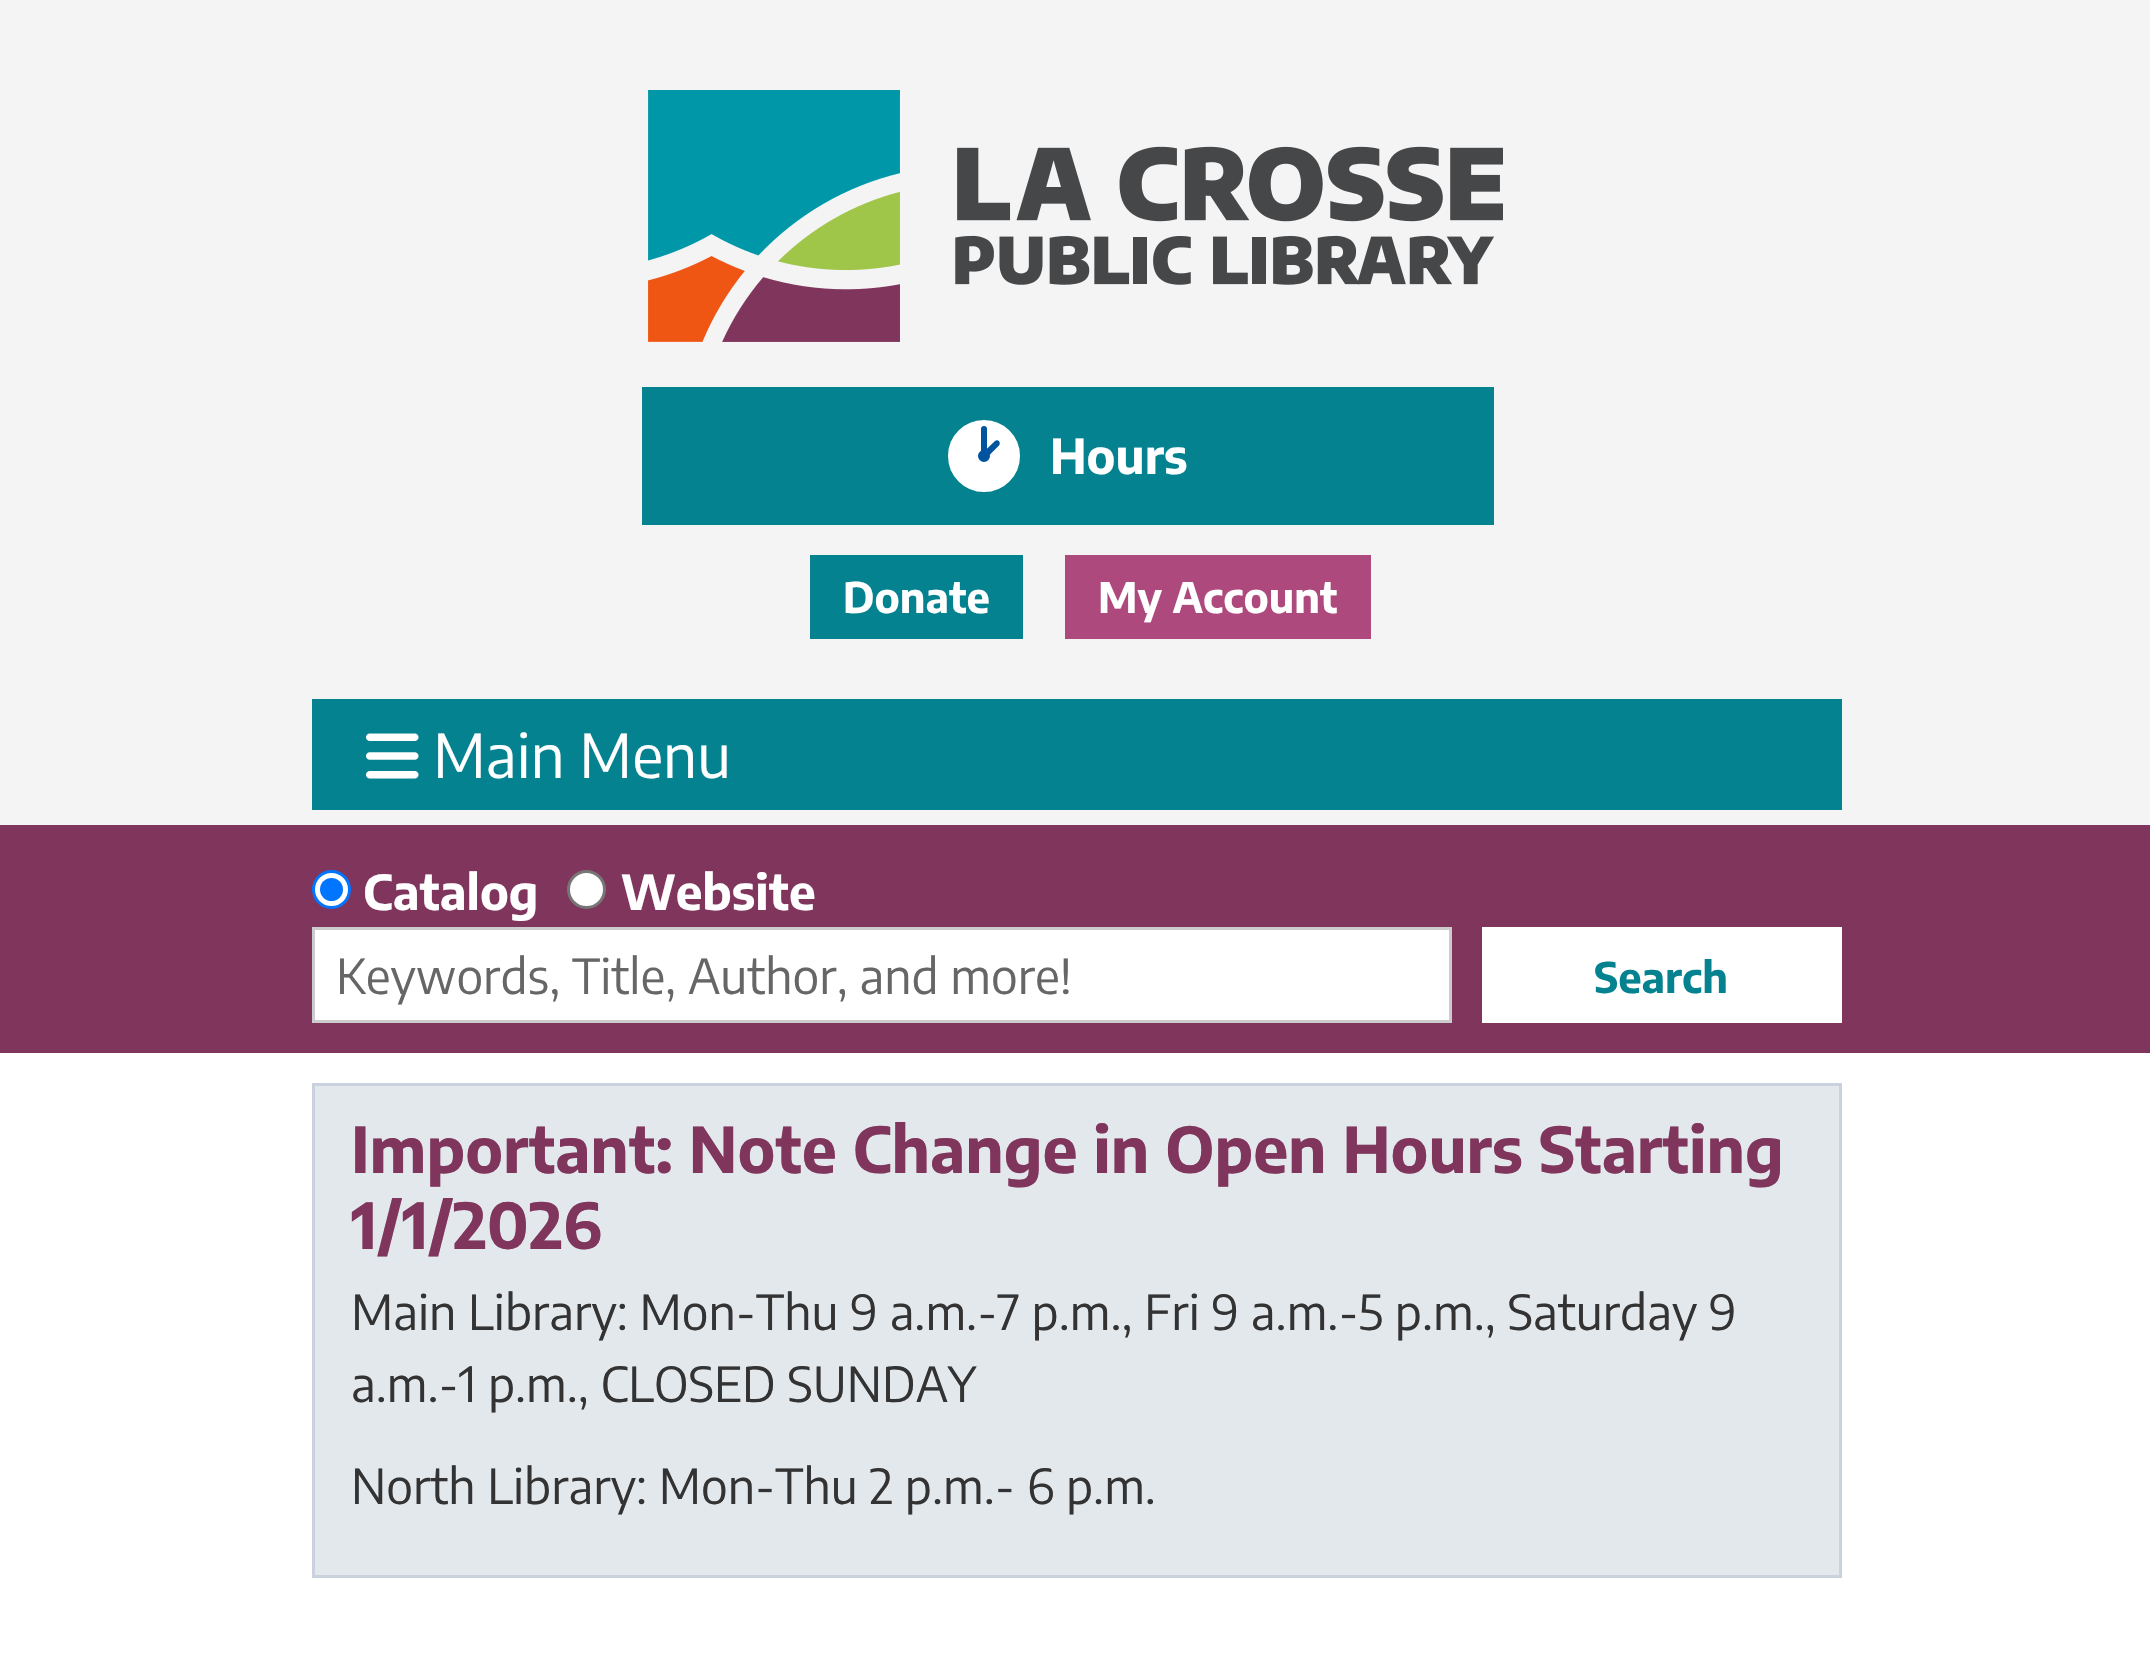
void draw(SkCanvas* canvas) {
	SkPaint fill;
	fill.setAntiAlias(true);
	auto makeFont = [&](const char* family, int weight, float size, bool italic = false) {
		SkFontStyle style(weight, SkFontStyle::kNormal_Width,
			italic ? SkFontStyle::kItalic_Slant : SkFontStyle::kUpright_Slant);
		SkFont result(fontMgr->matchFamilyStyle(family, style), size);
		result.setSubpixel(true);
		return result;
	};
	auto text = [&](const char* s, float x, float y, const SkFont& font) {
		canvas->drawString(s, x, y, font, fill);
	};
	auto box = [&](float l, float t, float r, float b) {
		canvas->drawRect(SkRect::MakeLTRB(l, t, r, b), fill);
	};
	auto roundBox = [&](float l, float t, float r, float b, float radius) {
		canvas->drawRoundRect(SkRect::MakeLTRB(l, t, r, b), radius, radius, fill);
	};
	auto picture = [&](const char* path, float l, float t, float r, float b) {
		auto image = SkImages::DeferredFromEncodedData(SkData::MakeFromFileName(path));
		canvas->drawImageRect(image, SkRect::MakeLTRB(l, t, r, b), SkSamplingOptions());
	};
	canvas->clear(0xFFFFFFFF);
	fill.setColor(0xFFF4F4F4);
	box(0, 0, 2150, 825);
	picture("image0.png", 648, 90, 1503, 342);
	fill.setColor(0xFF05828F);
	box(642, 387, 1494, 525);
	fill.setColor(0xFF00549F);
	canvas->drawCircle(984, 456, 21, fill);
	fill.setStyle(SkPaint::kStroke_Style);
	fill.setStrokeWidth(30);
	fill.setColor(0xFFFFFFFF);
	canvas->drawCircle(984, 456, 21, fill);
	fill.setStyle(SkPaint::kFill_Style);
	fill.setColor(0xFF00549F);
	roundBox(981, 426, 987, 456, 3);
	canvas->drawPath(SkPathBuilder().moveTo(999, 441).cubicTo(1000, 442.5f, 1000, 444, 999, 445.5f).lineTo(988.5f, 456).cubicTo(987.5f, 457, 985.5f, 457, 984, 456).cubicTo(983, 455, 983, 453, 984, 451.5f).lineTo(995, 441).cubicTo(996, 440, 998, 440, 999, 441).close().detach(), fill);
	fill.setColor(0xFF05828F);
	box(810, 555, 1023, 639);
	fill.setColor(0xFFAE497D);
	box(1065, 555, 1371, 639);
	fill.setColor(0xFF05828F);
	box(312, 699, 1842, 810);
	picture("image1.png", 366, 733, 419, 779);
	fill.setColor(0xFF80355C);
	box(0, 825, 2150, 1053);
	fill.setColor(0xFFFFFFFF);
	canvas->drawCircle(331.5f, 889.5f, 18, fill);
	fill.setStyle(SkPaint::kStroke_Style);
	fill.setStrokeWidth(3);
	fill.setColor(0xFF0075FF);
	canvas->drawCircle(331.5f, 889.5f, 18, fill);
	fill.setStyle(SkPaint::kFill_Style);
	canvas->drawCircle(331.5f, 889.5f, 11.5f, fill);
	fill.setColor(0xFFFFFFFF);
	canvas->drawCircle(586.5f, 889.5f, 18, fill);
	fill.setStyle(SkPaint::kStroke_Style);
	fill.setColor(0xFF767676);
	canvas->drawCircle(586.5f, 889.5f, 18, fill);
	fill.setStyle(SkPaint::kFill_Style);
	fill.setColor(0xFFFFFFFF);
	canvas->drawRect(SkRect::MakeLTRB(313.5f, 928.5f, 1450.5f, 1021.5f), fill);
	fill.setStyle(SkPaint::kStroke_Style);
	fill.setColor(0xFFCCCCCC);
	canvas->drawRect(SkRect::MakeLTRB(313.5f, 928.5f, 1450.5f, 1021.5f), fill);
	fill.setStyle(SkPaint::kFill_Style);
	fill.setColor(0xFFFFFFFF);
	box(1482, 927, 1842, 1023);
	fill.setColor(0xFFE3E8ED);
	canvas->drawRect(SkRect::MakeLTRB(313.5f, 1084.5f, 1840.5f, 1576.5f), fill);
	fill.setStyle(SkPaint::kStroke_Style);
	fill.setColor(0xFFCAD3DD);
	canvas->drawRect(SkRect::MakeLTRB(313.5f, 1084.5f, 1840.5f, 1576.5f), fill);
	auto font1 = makeFont("Encode Sans Condensed", 700, 48);
	fill.setStyle(SkPaint::kFill_Style);
	fill.setColor(0xFFFFFFFF);
	text("Hours", 1050, 474, font1);
	auto font2 = makeFont("Encode Sans Condensed", 700, 42);
	text("Donate", 843, 613, font2);
	text("My Account", 1098, 613, font2);
	auto font3 = makeFont("Encode Sans Condensed", 400, 60);
	text("Main Menu", 433, 778, font3);
	text("Catalog", 363, 910, font1);
	text("Website", 621, 910, font1);
	auto font4 = makeFont("Encode Sans Condensed", 400, 48);
	fill.setColor(0xFF666666);
	text("Keywords, Title, Author, and more!", 336, 994, font4);
	fill.setColor(0xFF05828F);
	text("Search", 1594, 993, font2);
	auto font5 = makeFont("Encode Sans Condensed", 700, 63);
	fill.setColor(0xFF80355C);
	text("Important: Note Change in Open Hours Starting", 351, 1173, font5);
	text("1/1/2026", 351, 1249, font5);
	fill.setColor(0xFF333333);
	text("Main Library: Mon-Thu 9 a.m.-7 p.m., Fri 9 a.m.-5 p.m., Saturday 9", 351, 1330, font4);
	text("a.m.-1 p.m., CLOSED SUNDAY", 351, 1402, font4);
	text("North Library: Mon-Thu 2 p.m.- 6 p.m.", 351, 1504, font4);
}
